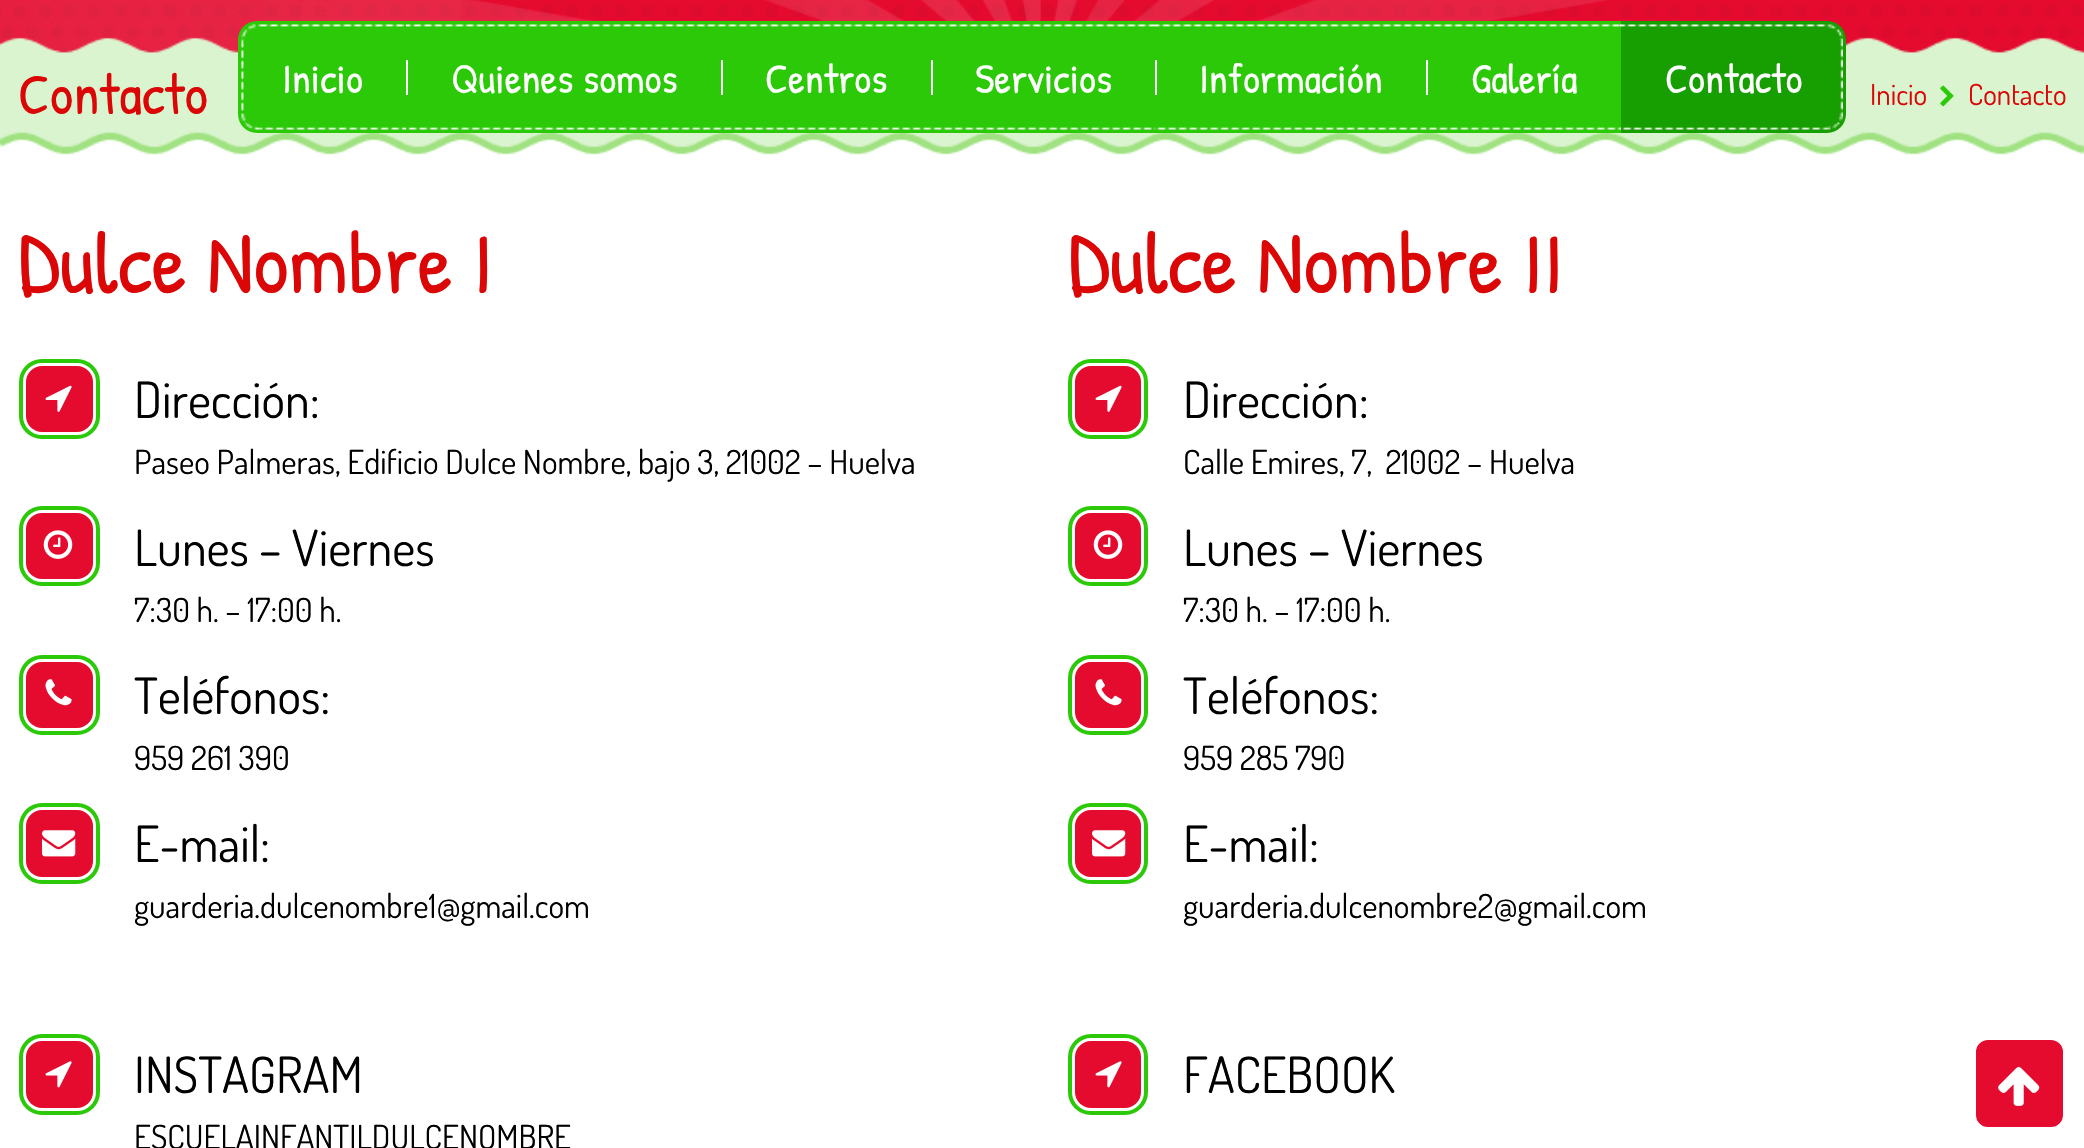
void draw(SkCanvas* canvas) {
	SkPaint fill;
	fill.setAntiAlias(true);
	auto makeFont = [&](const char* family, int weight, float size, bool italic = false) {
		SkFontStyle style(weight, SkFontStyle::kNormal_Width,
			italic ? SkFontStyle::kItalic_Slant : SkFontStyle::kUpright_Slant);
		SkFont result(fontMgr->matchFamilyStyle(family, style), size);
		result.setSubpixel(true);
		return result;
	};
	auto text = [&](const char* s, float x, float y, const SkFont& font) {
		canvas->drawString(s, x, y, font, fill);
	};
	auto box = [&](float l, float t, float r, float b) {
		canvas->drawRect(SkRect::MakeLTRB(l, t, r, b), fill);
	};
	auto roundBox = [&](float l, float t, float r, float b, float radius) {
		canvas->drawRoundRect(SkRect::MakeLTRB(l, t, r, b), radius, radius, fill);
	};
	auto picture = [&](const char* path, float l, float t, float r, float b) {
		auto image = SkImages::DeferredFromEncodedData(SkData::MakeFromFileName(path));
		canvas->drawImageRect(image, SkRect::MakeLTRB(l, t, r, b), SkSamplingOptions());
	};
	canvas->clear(0xFFFFFFFF);
	fill.setColor(0xFFE50B2F);
	box(0, 0, 2084, 53);
	picture("image1.png", 0, 5, 2084, 53);
	picture("image0.png", 0, 0, 1609, 53);
	picture("image9.png", 0, 37, 2084, 155);
	fill.setColor(0xFF2BC908);
	canvas->drawPath(SkPathBuilder().moveTo(257, 21).lineTo(406, 21).lineTo(406, 133).lineTo(257, 133).cubicTo(246.5f, 133, 238, 124.5f, 238, 114).lineTo(238, 40).cubicTo(238, 29.5f, 246.5f, 21, 257, 21).close().detach(), fill);
	box(406, 21, 1621, 133);
	fill.setColor(0xFFFFFFFF);
	box(406, 60, 408, 95);
	box(721, 60, 723, 95);
	box(931, 60, 933, 95);
	box(1155, 60, 1157, 95);
	box(1426, 60, 1428, 95);
	fill.setColor(0xFF179E00);
	canvas->drawPath(SkPathBuilder().moveTo(1621, 21).lineTo(1827, 21).cubicTo(1837.5f, 21, 1846, 29.5f, 1846, 40).lineTo(1846, 114).cubicTo(1846, 124.5f, 1837.5f, 133, 1827, 133).lineTo(1621, 133).close().detach(), fill);
	picture("image10.png", 1940, 85, 1954, 107);
	fill.setColor(0xFFE50B2F);
	roundBox(26, 366, 93, 432, 16);
	picture("image11.png", 45, 385, 72, 412);
	fill.setStyle(SkPaint::kStroke_Style);
	fill.setStrokeWidth(4);
	fill.setColor(0xFF2BC908);
	canvas->drawRoundRect(SkRect::MakeLTRB(21, 361, 98, 437), 21, 21, fill);
	fill.setStyle(SkPaint::kFill_Style);
	fill.setColor(0xFFE50B2F);
	roundBox(26, 513, 93, 579, 16);
	picture("image12.png", 43, 530, 73, 559);
	fill.setStyle(SkPaint::kStroke_Style);
	fill.setColor(0xFF2BC908);
	canvas->drawRoundRect(SkRect::MakeLTRB(21, 508, 98, 584), 21, 21, fill);
	fill.setStyle(SkPaint::kFill_Style);
	fill.setColor(0xFFE50B2F);
	roundBox(26, 662, 93, 728, 16);
	picture("image13.png", 45, 679, 72, 706);
	fill.setStyle(SkPaint::kStroke_Style);
	fill.setColor(0xFF2BC908);
	canvas->drawRoundRect(SkRect::MakeLTRB(21, 657, 98, 733), 21, 21, fill);
	fill.setStyle(SkPaint::kFill_Style);
	fill.setColor(0xFFE50B2F);
	roundBox(26, 810, 93, 877, 16);
	picture("image14.png", 42, 830, 76, 857);
	fill.setStyle(SkPaint::kStroke_Style);
	fill.setColor(0xFF2BC908);
	canvas->drawRoundRect(SkRect::MakeLTRB(21, 805, 98, 882), 21, 21, fill);
	fill.setStyle(SkPaint::kFill_Style);
	fill.setColor(0xFFE50B2F);
	roundBox(1075, 366, 1141, 432, 16);
	picture("image11.png", 1095, 385, 1122, 412);
	fill.setStyle(SkPaint::kStroke_Style);
	fill.setColor(0xFF2BC908);
	canvas->drawRoundRect(SkRect::MakeLTRB(1070, 361, 1146, 437), 21, 21, fill);
	fill.setStyle(SkPaint::kFill_Style);
	fill.setColor(0xFFE50B2F);
	roundBox(1075, 513, 1141, 579, 16);
	picture("image12.png", 1093, 530, 1123, 559);
	fill.setStyle(SkPaint::kStroke_Style);
	fill.setColor(0xFF2BC908);
	canvas->drawRoundRect(SkRect::MakeLTRB(1070, 508, 1146, 584), 21, 21, fill);
	fill.setStyle(SkPaint::kFill_Style);
	fill.setColor(0xFFE50B2F);
	roundBox(1075, 662, 1141, 728, 16);
	picture("image13.png", 1095, 679, 1122, 706);
	fill.setStyle(SkPaint::kStroke_Style);
	fill.setColor(0xFF2BC908);
	canvas->drawRoundRect(SkRect::MakeLTRB(1070, 657, 1146, 733), 21, 21, fill);
	fill.setStyle(SkPaint::kFill_Style);
	fill.setColor(0xFFE50B2F);
	roundBox(1075, 810, 1141, 877, 16);
	picture("image14.png", 1092, 830, 1126, 857);
	fill.setStyle(SkPaint::kStroke_Style);
	fill.setColor(0xFF2BC908);
	canvas->drawRoundRect(SkRect::MakeLTRB(1070, 805, 1146, 882), 21, 21, fill);
	fill.setStyle(SkPaint::kFill_Style);
	fill.setColor(0xFFE50B2F);
	roundBox(26, 1041, 93, 1108, 16);
	picture("image15.png", 45, 1061, 72, 1088);
	fill.setStyle(SkPaint::kStroke_Style);
	fill.setColor(0xFF2BC908);
	canvas->drawRoundRect(SkRect::MakeLTRB(21, 1036, 98, 1113), 21, 21, fill);
	fill.setStyle(SkPaint::kFill_Style);
	fill.setColor(0xFFE50B2F);
	roundBox(1075, 1041, 1141, 1108, 16);
	picture("image15.png", 1095, 1061, 1122, 1088);
	fill.setStyle(SkPaint::kStroke_Style);
	fill.setColor(0xFF2BC908);
	canvas->drawRoundRect(SkRect::MakeLTRB(1070, 1036, 1146, 1113), 21, 21, fill);
	fill.setStyle(SkPaint::kFill_Style);
	fill.setColor(0xFFE50B2F);
	canvas->drawRoundRect(SkRect::MakeLTRB(1974, 1038, 2065, 1129), 14, 14, fill);
	fill.setStyle(SkPaint::kStroke_Style);
	fill.setColor(0xFFFFFFFF);
	canvas->drawRoundRect(SkRect::MakeLTRB(1974, 1038, 2065, 1129), 14, 14, fill);
	picture("image16.png", 1998, 1067, 2040, 1106);
	auto font1 = makeFont("Patrick Hand", 400, 42);
	fill.setStyle(SkPaint::kFill_Style);
	text("Inicio", 282, 93, font1);
	picture("image2.png", 241, 24, 406, 130);
	text("Quienes somos", 451, 93, font1);
	picture("image3.png", 406, 24, 721, 130);
	text("Centros", 765, 93, font1);
	picture("image4.png", 721, 24, 931, 130);
	text("Servicios", 975, 93, font1);
	picture("image5.png", 931, 24, 1155, 130);
	text("Información", 1199, 93, font1);
	picture("image6.png", 1155, 24, 1426, 130);
	text("Galería", 1471, 93, font1);
	picture("image7.png", 1426, 24, 1621, 130);
	text("Contacto", 1665, 93, font1);
	picture("image8.png", 1620, 24, 1843, 130);
	auto font2 = makeFont("Patrick Hand", 400, 58);
	fill.setColor(0xFFDB0606);
	text("Contacto", 18, 114, font2);
	auto font3 = makeFont("Dosis", 400, 29);
	text("Inicio", 1870, 105, font3);
	text("Contacto", 1968, 105, font3);
	auto font4 = makeFont("Patrick Hand", 400, 87.5f);
	text("Dulce Nombre I", 18, 293, font4);
	auto font5 = makeFont("Dosis", 400, 50);
	fill.setColor(0xFF000000);
	text("Dirección:", 134, 418, font5);
	auto font6 = makeFont("Dosis", 400, 33.25f);
	text("Paseo Palmeras, Edificio Dulce Nombre, bajo 3, 21002 – Huelva", 134, 474, font6);
	text("Lunes – Viernes", 134, 566, font5);
	text("7:30 h. – 17:00 h.", 134, 622, font6);
	text("Teléfonos:", 134, 714, font5);
	text("959 261 390", 134, 770, font6);
	text("E-mail:", 134, 862, font5);
	text("guarderia.dulcenombre1@gmail.com", 134, 918, font6);
	fill.setColor(0xFFDB0606);
	text("Dulce Nombre II", 1068, 293, font4);
	fill.setColor(0xFF000000);
	text("Dirección:", 1183, 418, font5);
	text("Calle Emires, 7,  21002 – Huelva", 1183, 474, font6);
	text("Lunes – Viernes", 1183, 566, font5);
	text("7:30 h. – 17:00 h.", 1183, 622, font6);
	text("Teléfonos:", 1183, 714, font5);
	text("959 285 790", 1183, 770, font6);
	text("E-mail:", 1183, 862, font5);
	text("guarderia.dulcenombre2@gmail.com", 1183, 918, font6);
	text("INSTAGRAM", 134, 1093, font5);
	text("ESCUELAINFANTILDULCENOMBRE", 134, 1149, font6);
	text("FACEBOOK", 1183, 1093, font5);
}
